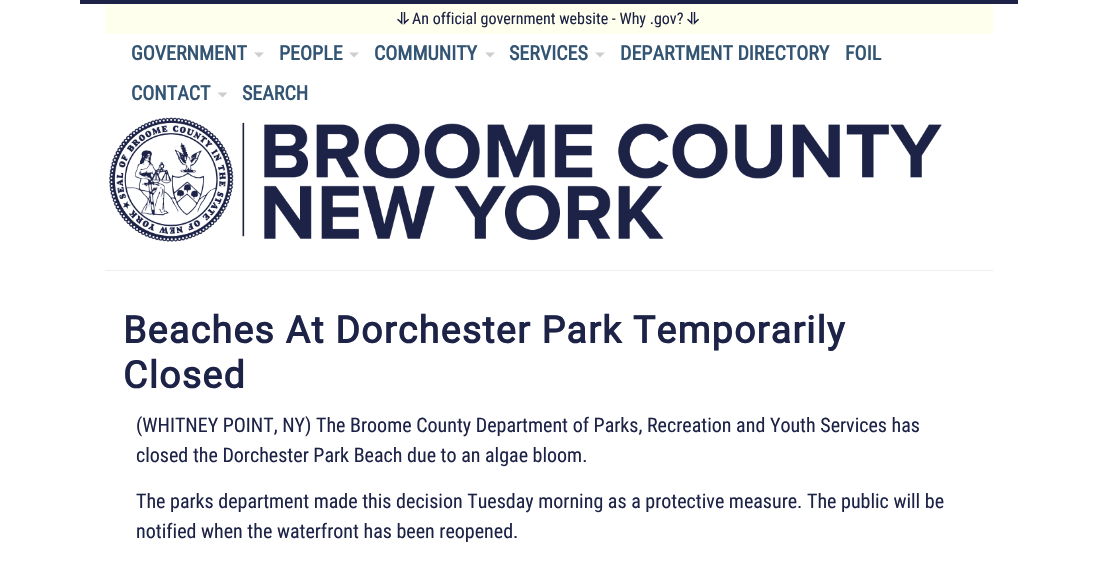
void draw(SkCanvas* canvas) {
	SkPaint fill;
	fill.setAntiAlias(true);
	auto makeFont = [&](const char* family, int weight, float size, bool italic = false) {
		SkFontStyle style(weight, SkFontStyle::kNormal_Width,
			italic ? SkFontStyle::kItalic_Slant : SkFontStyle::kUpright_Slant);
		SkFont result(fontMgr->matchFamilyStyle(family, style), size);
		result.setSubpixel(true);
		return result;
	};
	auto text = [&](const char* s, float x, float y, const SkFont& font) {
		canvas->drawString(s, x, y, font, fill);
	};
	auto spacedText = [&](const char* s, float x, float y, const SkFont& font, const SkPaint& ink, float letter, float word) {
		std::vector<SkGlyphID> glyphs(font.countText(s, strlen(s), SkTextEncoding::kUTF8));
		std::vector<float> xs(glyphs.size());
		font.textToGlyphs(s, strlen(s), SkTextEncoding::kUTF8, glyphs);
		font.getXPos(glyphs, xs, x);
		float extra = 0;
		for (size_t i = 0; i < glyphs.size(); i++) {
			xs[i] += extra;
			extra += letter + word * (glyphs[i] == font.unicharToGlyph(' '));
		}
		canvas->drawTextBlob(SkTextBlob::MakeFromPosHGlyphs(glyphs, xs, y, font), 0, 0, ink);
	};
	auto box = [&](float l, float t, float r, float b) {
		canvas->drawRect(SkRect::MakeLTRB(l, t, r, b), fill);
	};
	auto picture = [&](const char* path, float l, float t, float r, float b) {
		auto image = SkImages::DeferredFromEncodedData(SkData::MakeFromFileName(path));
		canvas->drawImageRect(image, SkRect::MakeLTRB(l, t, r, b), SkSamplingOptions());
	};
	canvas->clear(0xFFFFFFFF);
	fill.setColor(0xFF1D2347);
	box(80, 0, 1018, 4);
	fill.setColor(0xFFEEEEEE);
	box(105, 270, 993, 271);
	fill.setColor(0xFFFFFFED);
	box(105, 4, 993, 34);
	fill.setColor(0xFFCECECE);
	canvas->drawPath(SkPathBuilder().moveTo(254, 52.5f).lineTo(264, 52.5f).lineTo(259, 57.5f).close().detach(), fill);
	canvas->drawPath(SkPathBuilder().moveTo(349, 52.5f).lineTo(359, 52.5f).lineTo(354, 57.5f).close().detach(), fill);
	canvas->drawPath(SkPathBuilder().moveTo(485, 52.5f).lineTo(495, 52.5f).lineTo(490, 57.5f).close().detach(), fill);
	canvas->drawPath(SkPathBuilder().moveTo(595, 52.5f).lineTo(605, 52.5f).lineTo(600, 57.5f).close().detach(), fill);
	canvas->drawPath(SkPathBuilder().moveTo(217.5f, 92.5f).lineTo(227.5f, 92.5f).lineTo(222.5f, 97.5f).close().detach(), fill);
	picture("image0.png", 109, 117, 942, 242);
	auto font1 = makeFont("FreeSans", 700, 16);
	fill.setColor(0xFF1D2347);
	text("⥥", 397, 24, font1);
	auto font2 = makeFont("Roboto Condensed", 400, 16);
	text("An official government website - Why .gov?", 412, 24, font2);
	text("⥥", 687, 24, font1);
	auto font3 = makeFont("Roboto Condensed", 700, 20);
	fill.setColor(0xFF335573);
	text("GOVERNMENT", 131, 60, font3);
	text("PEOPLE", 279, 60, font3);
	text("COMMUNITY", 374, 60, font3);
	text("SERVICES", 509, 60, font3);
	text("DEPARTMENT DIRECTORY", 620, 60, font3);
	text("FOIL", 845, 60, font3);
	text("CONTACT", 131, 100, font3);
	text("SEARCH", 242, 100, font3);
	auto font4 = makeFont("Roboto", 700, 37.5f);
	fill.setColor(0xFF1D2347);
	spacedText("Beaches At Dorchester Park Temporarily", 123, 343, font4, fill, 1.25f, 0);
	spacedText("Closed", 123, 388, font4, fill, 1.25f, 0);
	auto font5 = makeFont("Roboto Condensed", 400, 20);
	text("(WHITNEY POINT, NY) The Broome County Department of Parks, Recreation and Youth Services has", 136, 432, font5);
	text("closed the Dorchester Park Beach due to an algae bloom.", 136, 462, font5);
	text("The parks department made this decision Tuesday morning as a protective measure. The public will be", 136, 508, font5);
	text("notified when the waterfront has been reopened.", 136, 538, font5);
}
